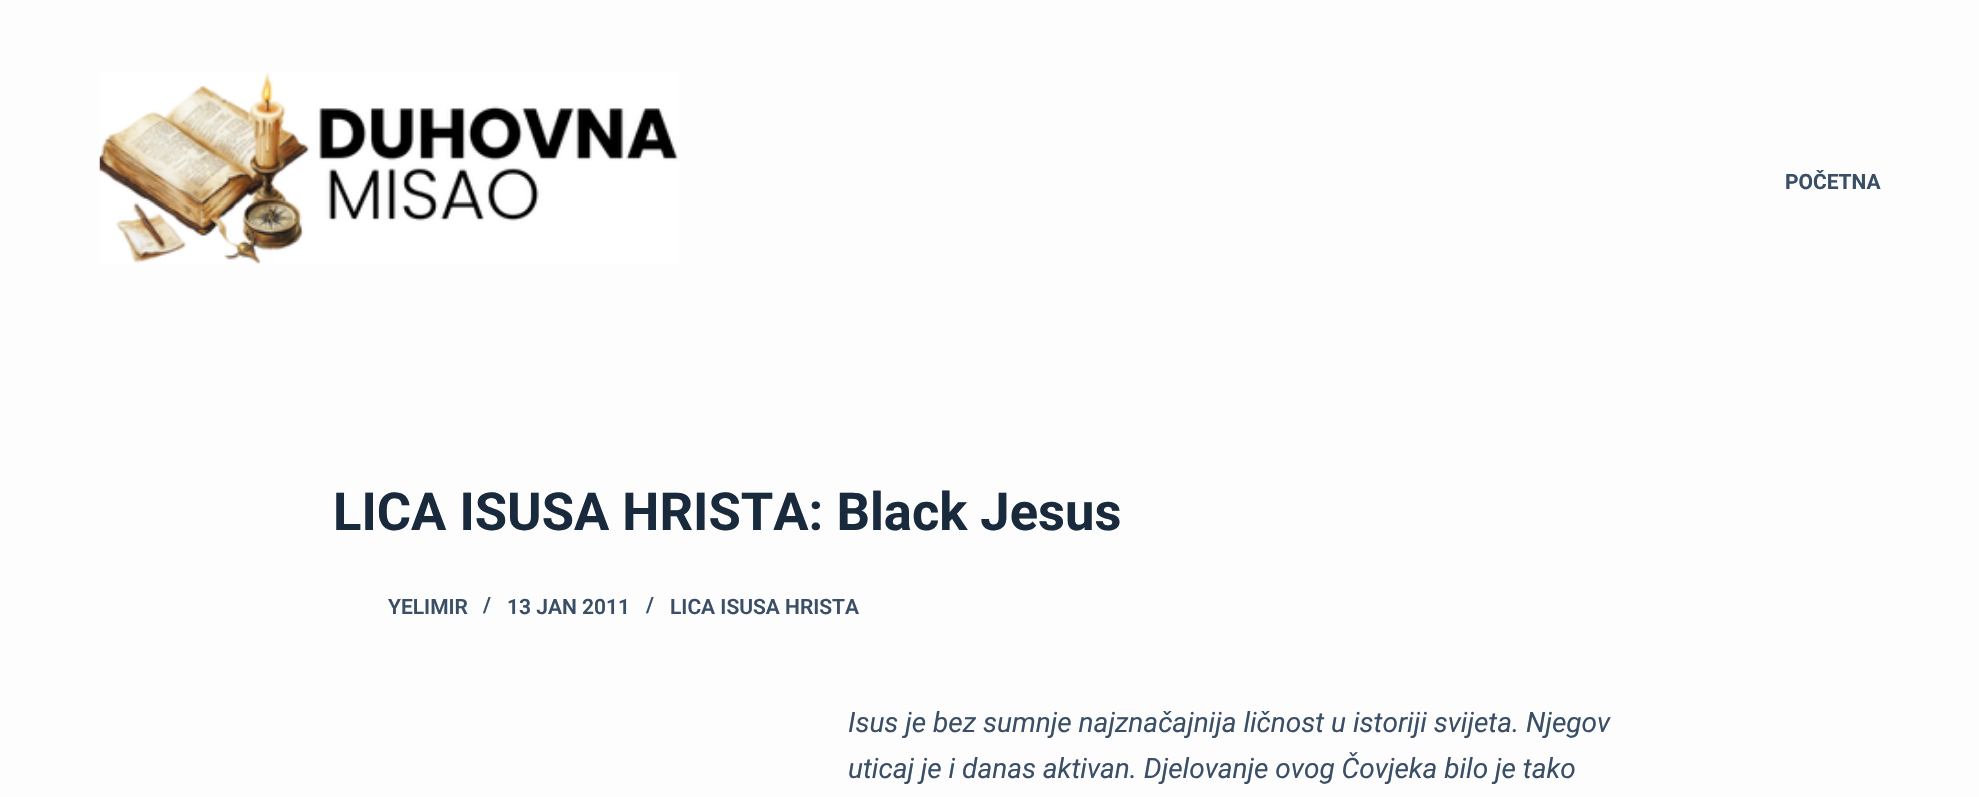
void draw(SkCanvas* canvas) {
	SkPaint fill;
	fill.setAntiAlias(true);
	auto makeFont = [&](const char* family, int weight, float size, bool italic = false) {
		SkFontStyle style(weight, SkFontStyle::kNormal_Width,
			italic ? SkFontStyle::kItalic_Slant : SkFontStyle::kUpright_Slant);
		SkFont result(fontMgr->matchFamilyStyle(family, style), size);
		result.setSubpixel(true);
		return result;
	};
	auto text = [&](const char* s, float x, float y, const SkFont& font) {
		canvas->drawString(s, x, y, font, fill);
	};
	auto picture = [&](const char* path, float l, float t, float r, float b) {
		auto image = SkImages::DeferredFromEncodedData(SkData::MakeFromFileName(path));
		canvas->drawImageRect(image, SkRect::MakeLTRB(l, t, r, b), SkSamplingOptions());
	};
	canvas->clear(0xFFFDFDFE);
	picture("image0.png", 99, 71, 679, 265);
	auto font1 = makeFont("Roboto", 700, 21);
	fill.setColor(0xFF3A4F66);
	text("POČETNA", 1785, 189, font1);
	auto font2 = makeFont("Roboto", 700, 52.5f);
	fill.setColor(0xFF192A3D);
	text("LICA ISUSA HRISTA: Black Jesus", 333, 530, font2);
	auto font3 = makeFont("Roboto", 600, 21);
	fill.setColor(0xFF3A4F66);
	text("YELIMIR", 388, 614, font3);
	text("/", 483, 612, font3);
	text("13 JAN 2011", 507, 614, font3);
	text("/", 646, 612, font3);
	text("LICA ISUSA HRISTA", 670, 614, font3);
	auto font4 = makeFont("Roboto", 400, 28, true);
	text("Isus je bez sumnje najznačajnija ličnost u istoriji svijeta. Njegov", 848, 732, font4);
	text("uticaj je i danas aktivan. Djelovanje ovog Čovjeka bilo je tako", 848, 778, font4);
}
